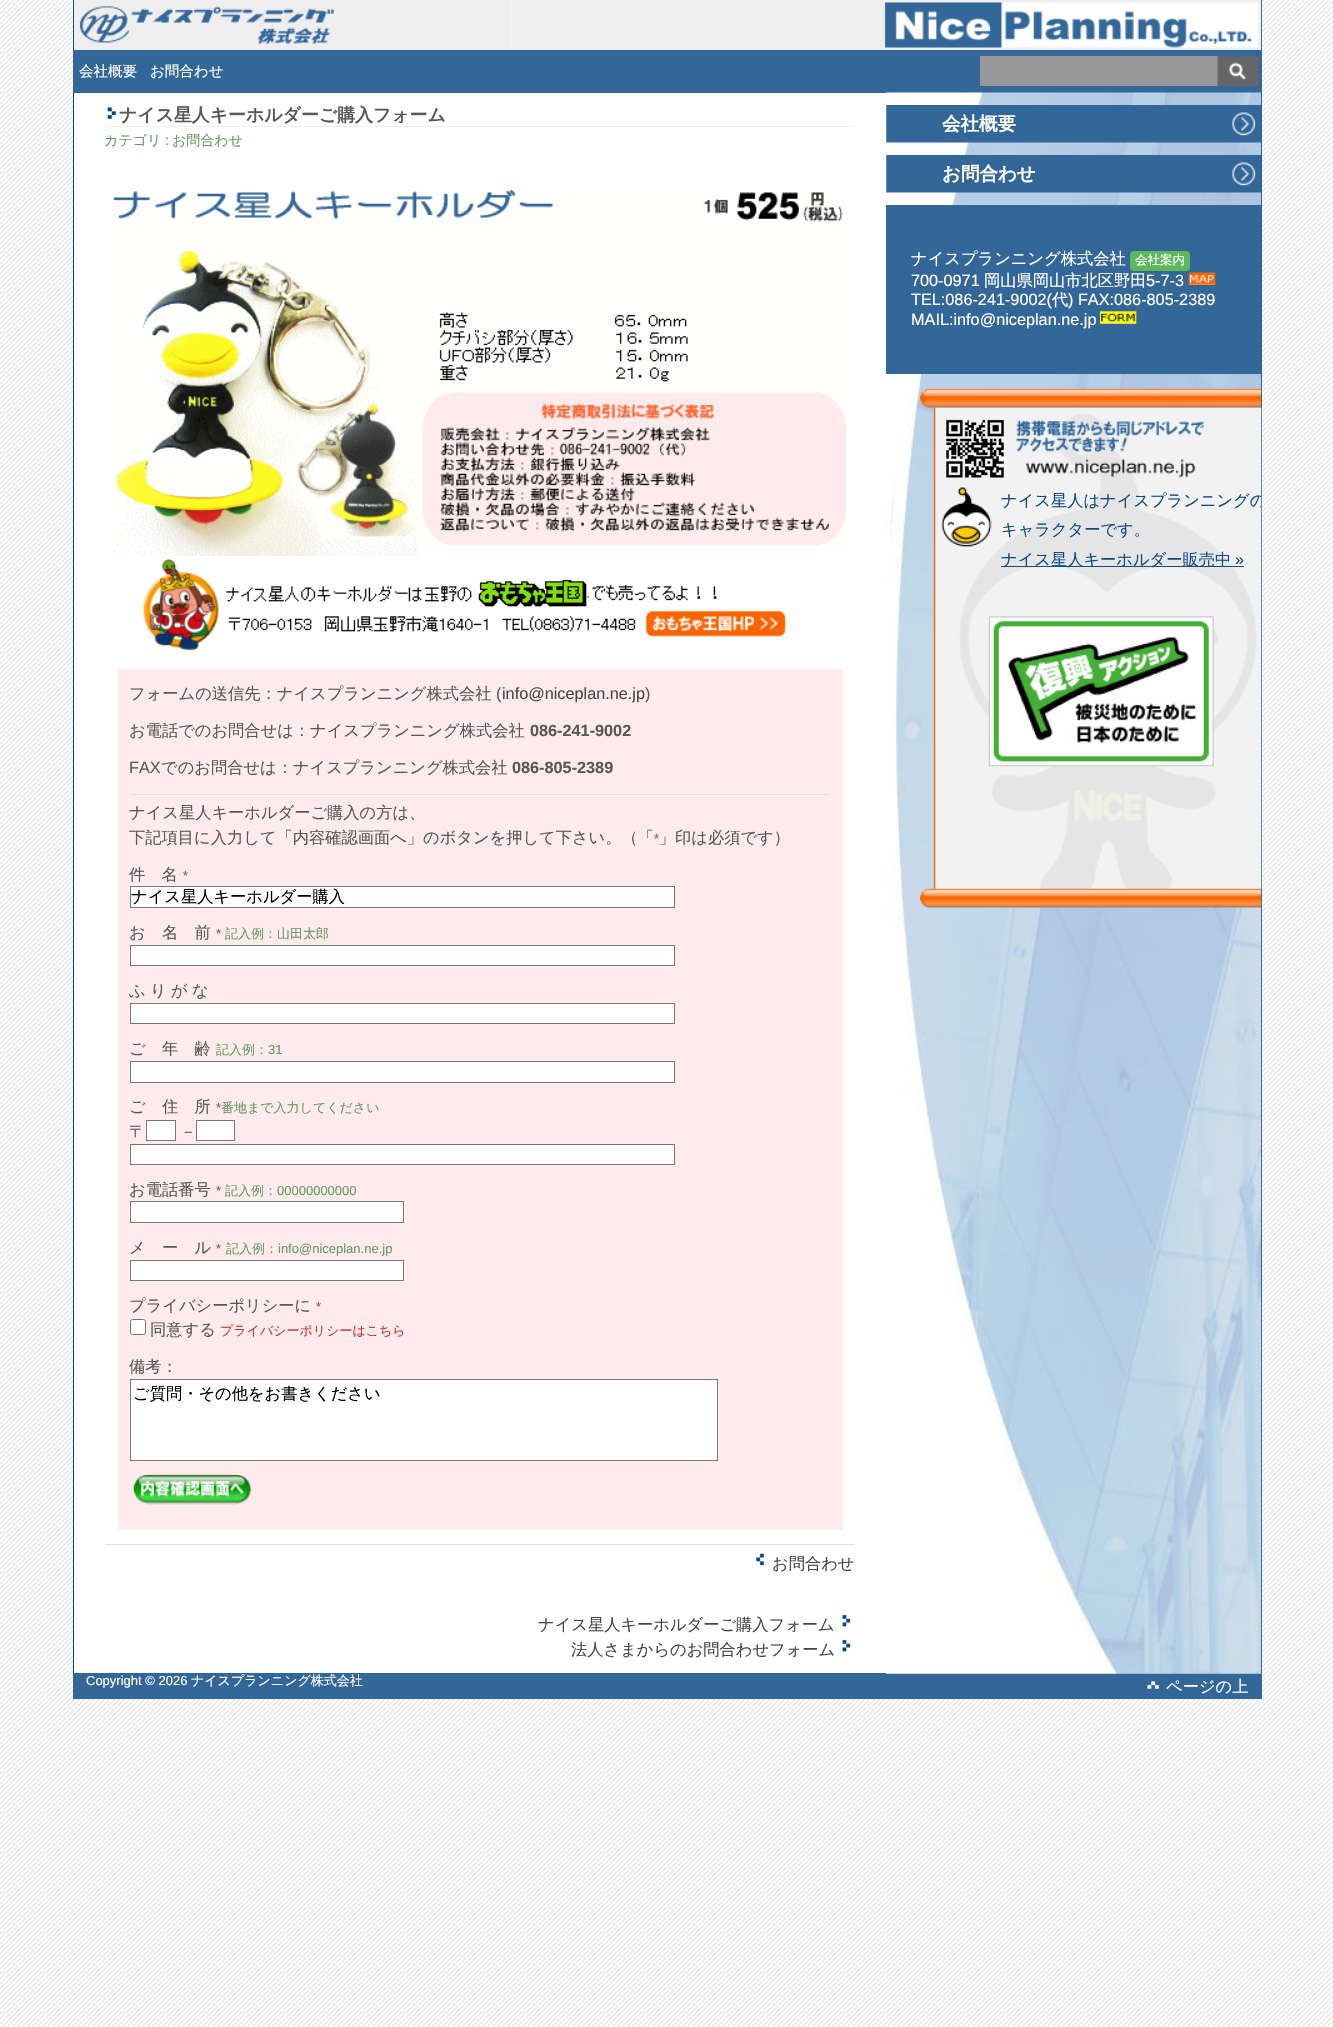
void draw(SkCanvas* canvas) {
	SkPaint fill;
	fill.setAntiAlias(true);
	auto makeFont = [&](const char* family, int weight, float size, bool italic = false) {
		SkFontStyle style(weight, SkFontStyle::kNormal_Width,
			italic ? SkFontStyle::kItalic_Slant : SkFontStyle::kUpright_Slant);
		SkFont result(fontMgr->matchFamilyStyle(family, style), size);
		result.setSubpixel(true);
		return result;
	};
	auto text = [&](const char* s, float x, float y, const SkFont& font) {
		canvas->drawString(s, x, y, font, fill);
	};
	auto spacedText = [&](const char* s, float x, float y, const SkFont& font, const SkPaint& ink, float letter, float word) {
		std::vector<SkGlyphID> glyphs(font.countText(s, strlen(s), SkTextEncoding::kUTF8));
		std::vector<float> xs(glyphs.size());
		font.textToGlyphs(s, strlen(s), SkTextEncoding::kUTF8, glyphs);
		font.getXPos(glyphs, xs, x);
		float extra = 0;
		for (size_t i = 0; i < glyphs.size(); i++) {
			xs[i] += extra;
			extra += letter + word * (glyphs[i] == font.unicharToGlyph(' '));
		}
		canvas->drawTextBlob(SkTextBlob::MakeFromPosHGlyphs(glyphs, xs, y, font), 0, 0, ink);
	};
	auto box = [&](float l, float t, float r, float b) {
		canvas->drawRect(SkRect::MakeLTRB(l, t, r, b), fill);
	};
	auto roundBox = [&](float l, float t, float r, float b, float radius) {
		canvas->drawRoundRect(SkRect::MakeLTRB(l, t, r, b), radius, radius, fill);
	};
	auto picture = [&](const char* path, float l, float t, float r, float b) {
		auto image = SkImages::DeferredFromEncodedData(SkData::MakeFromFileName(path));
		canvas->drawImageRect(image, SkRect::MakeLTRB(l, t, r, b), SkSamplingOptions());
	};
	canvas->clear(0xFFFFFFFF);
	picture("image0.png", 0, 0, 1333, 2027);
	fill.setColor(0xFFFFFFFF);
	box(74, 0, 887, 1673);
	fill.setColor(0xFF004080);
	box(1261, 0, 1262, 1673);
	box(73, 0, 74, 1673);
	picture("image1.png", 73, 0, 511, 50);
	picture("image2.png", 511, 0, 1262, 50);
	fill.setColor(0xFF336699);
	box(73, 50, 1262, 93);
	fill.setColor(0xFF999999);
	box(980, 56, 1218, 86);
	picture("image3.png", 1217, 56, 1259, 87);
	fill.setColor(0xFF336699);
	box(73, 1673, 1262, 1699);
	picture("image4.png", 886, 92, 1262, 1674);
	picture("image5.png", 107, 107, 117, 119);
	fill.setColor(0xFFEFEFEF);
	box(105, 126, 855, 127);
	picture("image6.png", 108, 189, 847, 557);
	picture("image7.png", 109, 556, 786, 651);
	fill.setColor(0xFFFFEBEB);
	box(118, 669, 843, 1530);
	fill.setColor(0xFFE0E0E0);
	box(130, 794, 830, 795);
	fill.setColor(0xFFFFFFFF);
	canvas->drawRect(SkRect::MakeLTRB(130.5f, 886.5f, 674.5f, 907.5f), fill);
	fill.setStyle(SkPaint::kStroke_Style);
	fill.setStrokeWidth(1);
	fill.setColor(0xFF777777);
	canvas->drawRect(SkRect::MakeLTRB(130.5f, 886.5f, 674.5f, 907.5f), fill);
	fill.setStyle(SkPaint::kFill_Style);
	fill.setColor(0xFFFFFFFF);
	canvas->drawRect(SkRect::MakeLTRB(130.5f, 945.5f, 674.5f, 965.5f), fill);
	fill.setStyle(SkPaint::kStroke_Style);
	fill.setColor(0xFF777777);
	canvas->drawRect(SkRect::MakeLTRB(130.5f, 945.5f, 674.5f, 965.5f), fill);
	fill.setStyle(SkPaint::kFill_Style);
	fill.setColor(0xFFFFFFFF);
	canvas->drawRect(SkRect::MakeLTRB(130.5f, 1003.5f, 674.5f, 1023.5f), fill);
	fill.setStyle(SkPaint::kStroke_Style);
	fill.setColor(0xFF777777);
	canvas->drawRect(SkRect::MakeLTRB(130.5f, 1003.5f, 674.5f, 1023.5f), fill);
	fill.setStyle(SkPaint::kFill_Style);
	fill.setColor(0xFFFFFFFF);
	canvas->drawRect(SkRect::MakeLTRB(130.5f, 1061.5f, 674.5f, 1082.5f), fill);
	fill.setStyle(SkPaint::kStroke_Style);
	fill.setColor(0xFF777777);
	canvas->drawRect(SkRect::MakeLTRB(130.5f, 1061.5f, 674.5f, 1082.5f), fill);
	fill.setStyle(SkPaint::kFill_Style);
	fill.setColor(0xFFFFFFFF);
	canvas->drawRect(SkRect::MakeLTRB(146.5f, 1120.5f, 175.5f, 1140.5f), fill);
	fill.setStyle(SkPaint::kStroke_Style);
	fill.setColor(0xFF777777);
	canvas->drawRect(SkRect::MakeLTRB(146.5f, 1120.5f, 175.5f, 1140.5f), fill);
	fill.setStyle(SkPaint::kFill_Style);
	fill.setColor(0xFFFFFFFF);
	canvas->drawRect(SkRect::MakeLTRB(196.5f, 1120.5f, 234.5f, 1140.5f), fill);
	fill.setStyle(SkPaint::kStroke_Style);
	fill.setColor(0xFF777777);
	canvas->drawRect(SkRect::MakeLTRB(196.5f, 1120.5f, 234.5f, 1140.5f), fill);
	fill.setStyle(SkPaint::kFill_Style);
	fill.setColor(0xFFFFFFFF);
	canvas->drawRect(SkRect::MakeLTRB(130.5f, 1144.5f, 674.5f, 1164.5f), fill);
	fill.setStyle(SkPaint::kStroke_Style);
	fill.setColor(0xFF777777);
	canvas->drawRect(SkRect::MakeLTRB(130.5f, 1144.5f, 674.5f, 1164.5f), fill);
	fill.setStyle(SkPaint::kFill_Style);
	fill.setColor(0xFFFFFFFF);
	canvas->drawRect(SkRect::MakeLTRB(130.5f, 1201.5f, 403.5f, 1222.5f), fill);
	fill.setStyle(SkPaint::kStroke_Style);
	fill.setColor(0xFF777777);
	canvas->drawRect(SkRect::MakeLTRB(130.5f, 1201.5f, 403.5f, 1222.5f), fill);
	fill.setStyle(SkPaint::kFill_Style);
	fill.setColor(0xFFFFFFFF);
	canvas->drawRect(SkRect::MakeLTRB(130.5f, 1260.5f, 403.5f, 1280.5f), fill);
	fill.setStyle(SkPaint::kStroke_Style);
	fill.setColor(0xFF777777);
	canvas->drawRect(SkRect::MakeLTRB(130.5f, 1260.5f, 403.5f, 1280.5f), fill);
	fill.setStyle(SkPaint::kFill_Style);
	fill.setColor(0xFFFFFFFF);
	canvas->drawRoundRect(SkRect::MakeLTRB(130.5f, 1319.5f, 145.5f, 1334.5f), 2, 2, fill);
	fill.setStyle(SkPaint::kStroke_Style);
	fill.setColor(0xFF767676);
	canvas->drawRoundRect(SkRect::MakeLTRB(130.5f, 1319.5f, 145.5f, 1334.5f), 2, 2, fill);
	fill.setStyle(SkPaint::kFill_Style);
	fill.setColor(0xFFFFFFFF);
	canvas->drawRect(SkRect::MakeLTRB(130.5f, 1379.5f, 717.5f, 1460.5f), fill);
	fill.setStyle(SkPaint::kStroke_Style);
	fill.setColor(0xFF777777);
	canvas->drawRect(SkRect::MakeLTRB(130.5f, 1379.5f, 717.5f, 1460.5f), fill);
	picture("image8.png", 133, 1474, 252, 1505);
	fill.setStyle(SkPaint::kFill_Style);
	fill.setColor(0xFFE0E0E0);
	box(105, 1544, 855, 1545);
	picture("image9.png", 756, 1553, 764, 1566);
	picture("image10.png", 842, 1614, 851, 1627);
	picture("image10.png", 842, 1639, 851, 1652);
	picture("image11.png", 886, 105, 1261, 143);
	picture("image12.png", 886, 155, 1261, 193);
	fill.setColor(0xFF336699);
	box(886, 205, 1261, 374);
	fill.setColor(0xFF5CB85C);
	roundBox(1130, 251, 1190, 271, 4);
	picture("image13.png", 1188, 272, 1216, 285);
	picture("image14.png", 1100, 311, 1137, 324);
	picture("image16.png", 933, 407, 1262, 889);
	picture("image15.png", 919, 388, 1262, 408);
	picture("image17.png", 946, 419, 1204, 478);
	picture("image18.png", 941, 486, 992, 548);
	fill.setColor(0xFF0E4A89);
	box(1001, 566, 1244, 567);
	picture("image19.png", 988, 616, 1214, 767);
	picture("image20.png", 919, 888, 1262, 908);
	picture("image21.png", 1147, 1681, 1159, 1689);
	auto font1 = makeFont("WenQuanYi Zen Hei", 500, 14.5f);
	fill.setColor(0xFFFFFFFF);
	text("会社概要", 79, 76, font1);
	text("お問合わせ", 150, 76, font1);
	auto font2 = makeFont("WenQuanYi Zen Hei", 700, 17.9f);
	fill.setColor(0xFF585858);
	text("ナイス星人キーホルダーご購入フォーム", 119, 121, font2);
	auto font3 = makeFont("WenQuanYi Zen Hei", 500, 14);
	fill.setColor(0xFF669966);
	text("カテゴリ", 104, 145, font3);
	auto font4 = makeFont("Liberation Sans", 400, 14);
	text(":", 165, 145, font4);
	text("お問合わせ", 172, 145, font3);
	auto font5 = makeFont("WenQuanYi Zen Hei", 500, 16.25f);
	fill.setColor(0xFF585858);
	text("フォームの送信先：ナイスプランニング株式会社", 129, 699, font5);
	auto font6 = makeFont("Liberation Sans", 400, 16.25f);
	text("(", 496, 699, font6);
	fill.setColor(0xFF464646);
	text("info@niceplan.ne.jp", 502, 699, font6);
	fill.setColor(0xFF585858);
	text(")", 645, 699, font6);
	text("お電話でのお問合せは：ナイスプランニング株式会社", 129, 736, font5);
	auto font7 = makeFont("Liberation Sans", 700, 16.25f);
	text("086-241-9002", 530, 736, font7);
	text("FAX", 129, 773, font6);
	text("でのお問合せは：ナイスプランニング株式会社", 161, 773, font5);
	text("086-805-2389", 512, 773, font7);
	text("ナイス星人キーホルダーご購入の方は、", 129, 818, font5);
	text("下記項目に入力して「内容確認画面へ」のボタンを押して下さい。（「 」印は必須です）", 129, 843, font5);
	auto font8 = makeFont("Liberation Sans", 400, 13);
	fill.setColor(0xFFCC3333);
	text("*", 654, 843, font8);
	fill.setColor(0xFF585858);
	text("件　名", 129, 880, font5);
	fill.setColor(0xFFCC3333);
	text("*", 183, 880, font8);
	fill.setColor(0xFF000000);
	text("ナイス星人キーホルダー購入", 131, 902, font5);
	fill.setColor(0xFF585858);
	text("お　名　前", 129, 938, font5);
	fill.setColor(0xFFCC3333);
	text("*", 216, 938, font8);
	auto font9 = makeFont("WenQuanYi Zen Hei", 500, 13);
	fill.setColor(0xFF669966);
	text("記入例：山田太郎", 225, 938, font9);
	fill.setColor(0xFF585858);
	spacedText("ふ り が な", 129, 996, font5, fill, 0, -0.5f);
	text("ご　年　齢", 129, 1054, font5);
	fill.setColor(0xFF669966);
	text("記入例：", 216, 1054, font9);
	text("31", 268, 1054, font8);
	fill.setColor(0xFF585858);
	text("ご　住　所", 129, 1112, font5);
	fill.setColor(0xFFCC3333);
	text("*", 216, 1112, font8);
	fill.setColor(0xFF669966);
	text("番地まで入力してください", 221, 1112, font9);
	fill.setColor(0xFF585858);
	text("〒", 129, 1137, font5);
	text("－", 180, 1137, font5);
	text("お電話番号", 129, 1195, font5);
	fill.setColor(0xFFCC3333);
	text("*", 216, 1195, font8);
	fill.setColor(0xFF669966);
	text("記入例：", 225, 1195, font9);
	text("00000000000", 277, 1195, font8);
	fill.setColor(0xFF585858);
	text("メ　ー　ル", 129, 1253, font5);
	fill.setColor(0xFFCC3333);
	text("*", 216, 1253, font8);
	fill.setColor(0xFF669966);
	text("記入例：", 226, 1253, font9);
	text("info@niceplan.ne.jp", 278, 1253, font8);
	fill.setColor(0xFF585858);
	text("プライバシーポリシーに", 129, 1311, font5);
	fill.setColor(0xFFCC3333);
	text("*", 316, 1311, font8);
	fill.setColor(0xFF585858);
	text("同意する", 150, 1335, font5);
	fill.setColor(0xFFCC3333);
	text("プライバシーポリシーはこちら", 220, 1335, font9);
	fill.setColor(0xFF585858);
	text("備考：", 129, 1372, font5);
	fill.setColor(0xFF000000);
	text("ご質問・その他をお書きください", 133, 1399, font5);
	fill.setColor(0xFF464646);
	text("お問合わせ", 772, 1569, font5);
	text("ナイス星人キーホルダーご購入フォーム", 538, 1630, font5);
	text("法人さまからのお問合わせフォーム", 571, 1655, font5);
	auto font10 = makeFont("WenQuanYi Zen Hei", 700, 18.5f);
	fill.setColor(0xFFFFFFFF);
	text("会社概要", 942, 130, font10);
	text("お問合わせ", 942, 180, font10);
	text("ナイスプランニング株式会社", 911, 264, font5);
	auto font11 = makeFont("WenQuanYi Zen Hei", 500, 12.5f);
	text("会社案内", 1135, 264, font11);
	text("700-0971", 911, 286, font6);
	text("岡山県岡山市北区野田", 984, 286, font5);
	text("5-7-3", 1146, 286, font6);
	text("TEL:086-241-9002(", 911, 305, font6);
	text("代", 1052, 305, font5);
	text(") FAX:086-805-2389", 1068, 305, font6);
	text("MAIL:info@niceplan.ne.jp", 911, 325, font6);
	canvas->save();
	canvas->clipRect(SkRect::MakeLTRB(74, 93, 1261, 1674));
	fill.setColor(0xFF0E4A89);
	text("ナイス星人はナイスプランニングの", 1001, 506, font5);
	canvas->restore();
	text("キャラクターです。", 1001, 535, font5);
	text("ナイス星人キーホルダー販売中", 1001, 565, font5);
	text("»", 1235, 565, font6);
	fill.setColor(0xFFFFFFFF);
	text("Copyright © 2026", 86, 1685, font8);
	text("ナイスプランニング株式会社", 191, 1685, font9);
	text("ページの上", 1166, 1692, font5);
}
